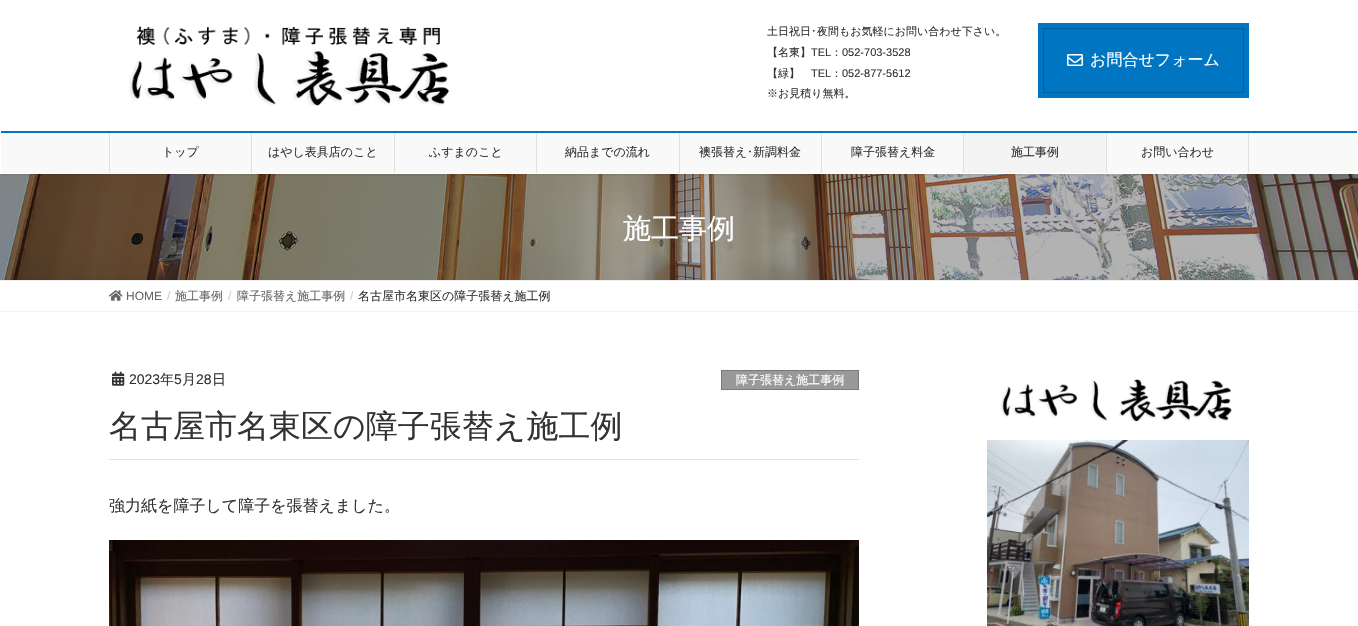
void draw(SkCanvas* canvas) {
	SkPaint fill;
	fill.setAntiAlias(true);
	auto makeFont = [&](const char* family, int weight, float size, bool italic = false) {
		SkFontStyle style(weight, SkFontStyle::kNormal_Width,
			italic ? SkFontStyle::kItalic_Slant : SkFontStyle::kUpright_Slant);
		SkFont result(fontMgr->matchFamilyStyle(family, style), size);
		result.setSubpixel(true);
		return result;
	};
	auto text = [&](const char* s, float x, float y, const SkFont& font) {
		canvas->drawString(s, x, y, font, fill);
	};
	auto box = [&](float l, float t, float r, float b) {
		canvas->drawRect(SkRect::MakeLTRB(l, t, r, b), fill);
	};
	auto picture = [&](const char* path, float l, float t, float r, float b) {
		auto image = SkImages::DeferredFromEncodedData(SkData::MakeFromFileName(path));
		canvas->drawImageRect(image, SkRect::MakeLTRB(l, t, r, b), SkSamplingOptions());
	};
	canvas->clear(0xFFFFFFFF);
	picture("image2.png", 0, 174, 1358, 280);
	canvas->save();
	canvas->clipRect(SkRect::MakeLTRB(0, 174, 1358, 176));
	fill.setColor(0x1A000000);
	fill.setMaskFilter(SkMaskFilter::MakeBlur(kNormal_SkBlurStyle, 1.5f));
	canvas->drawRect(SkRect::MakeLTRB(0, 1, 1358, 175), fill);
	fill.setMaskFilter(nullptr);
	canvas->restore();
	picture("image0.png", 129, 26, 450, 106);
	fill.setColor(0xFF0075C2);
	box(1038, 23, 1249, 98);
	fill.setStyle(SkPaint::kStroke_Style);
	fill.setStrokeWidth(1);
	fill.setColor(0xFF005E9B);
	canvas->drawRect(SkRect::MakeLTRB(1043.5f, 28.5f, 1243.5f, 92.5f), fill);
	picture("image1.png", 1067, 54, 1083, 66);
	fill.setStyle(SkPaint::kFill_Style);
	fill.setColor(0xFFF9F9F9);
	box(1, 133, 1357, 173);
	fill.setColor(0xFF0075C2);
	box(1, 131, 1357, 133);
	fill.setColor(0xFFE0E0E0);
	box(109, 133, 110, 173);
	box(251, 133, 252, 173);
	box(394, 133, 395, 173);
	box(536, 133, 537, 173);
	box(679, 133, 680, 173);
	box(821, 133, 822, 173);
	box(963, 133, 964, 173);
	fill.setColor(0xFFF4F4F4);
	box(964, 133, 1106, 173);
	fill.setColor(0xFFE0E0E0);
	box(1248, 133, 1249, 173);
	box(1106, 133, 1107, 173);
	fill.setColor(0xFFEEEEEE);
	box(0, 280, 1358, 281);
	fill.setColor(0xFFF3F3F3);
	box(0, 311, 1358, 312);
	picture("image3.png", 109, 290, 123, 301);
	fill.setColor(0xFFE5E5E5);
	box(109, 459, 859, 460);
	picture("image4.png", 112, 371, 125, 386);
	fill.setColor(0xFF999999);
	canvas->drawRect(SkRect::MakeLTRB(721.5f, 370.5f, 858.5f, 389.5f), fill);
	fill.setStyle(SkPaint::kStroke_Style);
	fill.setColor(0xFF7A7A7A);
	canvas->drawRect(SkRect::MakeLTRB(721.5f, 370.5f, 858.5f, 389.5f), fill);
	picture("image5.png", 109, 540, 859, 626);
	picture("image6.png", 1001, 379, 1232, 421);
	picture("image7.png", 987, 440, 1249, 626);
	auto font1 = makeFont("WenQuanYi Zen Hei", 500, 11);
	fill.setStyle(SkPaint::kFill_Style);
	fill.setColor(0xFF333333);
	text("土日祝日", 767, 35, font1);
	auto font2 = makeFont("IPAPGothic", 400, 11);
	text("･", 811, 35, font2);
	text("夜間もお気軽にお問い合わせ下さい。", 817, 35, font1);
	text("【名東】", 767, 56, font1);
	auto font3 = makeFont("Liberation Sans", 400, 11);
	text("TEL", 811, 56, font3);
	text("：", 831, 56, font1);
	text("052-703-3528", 842, 56, font3);
	text("【緑】", 767, 77, font1);
	text("TEL", 811, 77, font3);
	text("：", 831, 77, font1);
	text("052-877-5612", 842, 77, font3);
	text("※お見積り無料。", 767, 97, font1);
	auto font4 = makeFont("WenQuanYi Zen Hei", 500, 16);
	fill.setColor(0xFFFFFFFF);
	text("お問合せフォーム", 1090, 65, font4);
	auto font5 = makeFont("WenQuanYi Zen Hei", 500, 12);
	fill.setColor(0xFF333333);
	text("トップ", 162, 156, font5);
	text("はやし表具店のこと", 268, 156, font5);
	text("ふすまのこと", 429, 156, font5);
	text("納品までの流れ", 565, 156, font5);
	text("襖張替え", 699, 156, font5);
	auto font6 = makeFont("IPAPGothic", 400, 12);
	text("･", 747, 156, font6);
	text("新調料金", 753, 156, font5);
	text("障子張替え料金", 851, 156, font5);
	text("施工事例", 1011, 156, font5);
	text("お問い合わせ", 1141, 156, font5);
	auto font7 = makeFont("WenQuanYi Zen Hei", 500, 28);
	fill.setColor(0xFFFFFFFF);
	text("施工事例", 623, 238, font7);
	auto font8 = makeFont("Liberation Sans", 400, 12);
	fill.setColor(0xFF666666);
	text("HOME", 126, 300, font8);
	fill.setColor(0xFFCCCCCC);
	text("/", 167, 300, font8);
	fill.setColor(0xFF666666);
	text("施工事例", 175, 300, font5);
	fill.setColor(0xFFCCCCCC);
	text("/", 228, 300, font8);
	fill.setColor(0xFF666666);
	text("障子張替え施工事例", 237, 300, font5);
	fill.setColor(0xFFCCCCCC);
	text("/", 350, 300, font8);
	fill.setColor(0xFF333333);
	text("名古屋市名東区の障子張替え施工例", 358, 300, font5);
	auto font9 = makeFont("Liberation Sans", 400, 14);
	text("2023", 129, 384, font9);
	auto font10 = makeFont("WenQuanYi Zen Hei", 500, 14);
	text("年", 160, 384, font10);
	text("5", 174, 384, font9);
	text("月", 182, 384, font10);
	text("28", 196, 384, font9);
	text("日", 212, 384, font10);
	fill.setColor(0xFFFFFFFF);
	text("障子張替え施工事例", 736, 384, font5);
	auto font11 = makeFont("WenQuanYi Zen Hei", 500, 32);
	fill.setColor(0xFF333333);
	text("名古屋市名東区の障子張替え施工例", 109, 437, font11);
	text("強力紙を障子して障子を張替えました。", 109, 511, font4);
}
